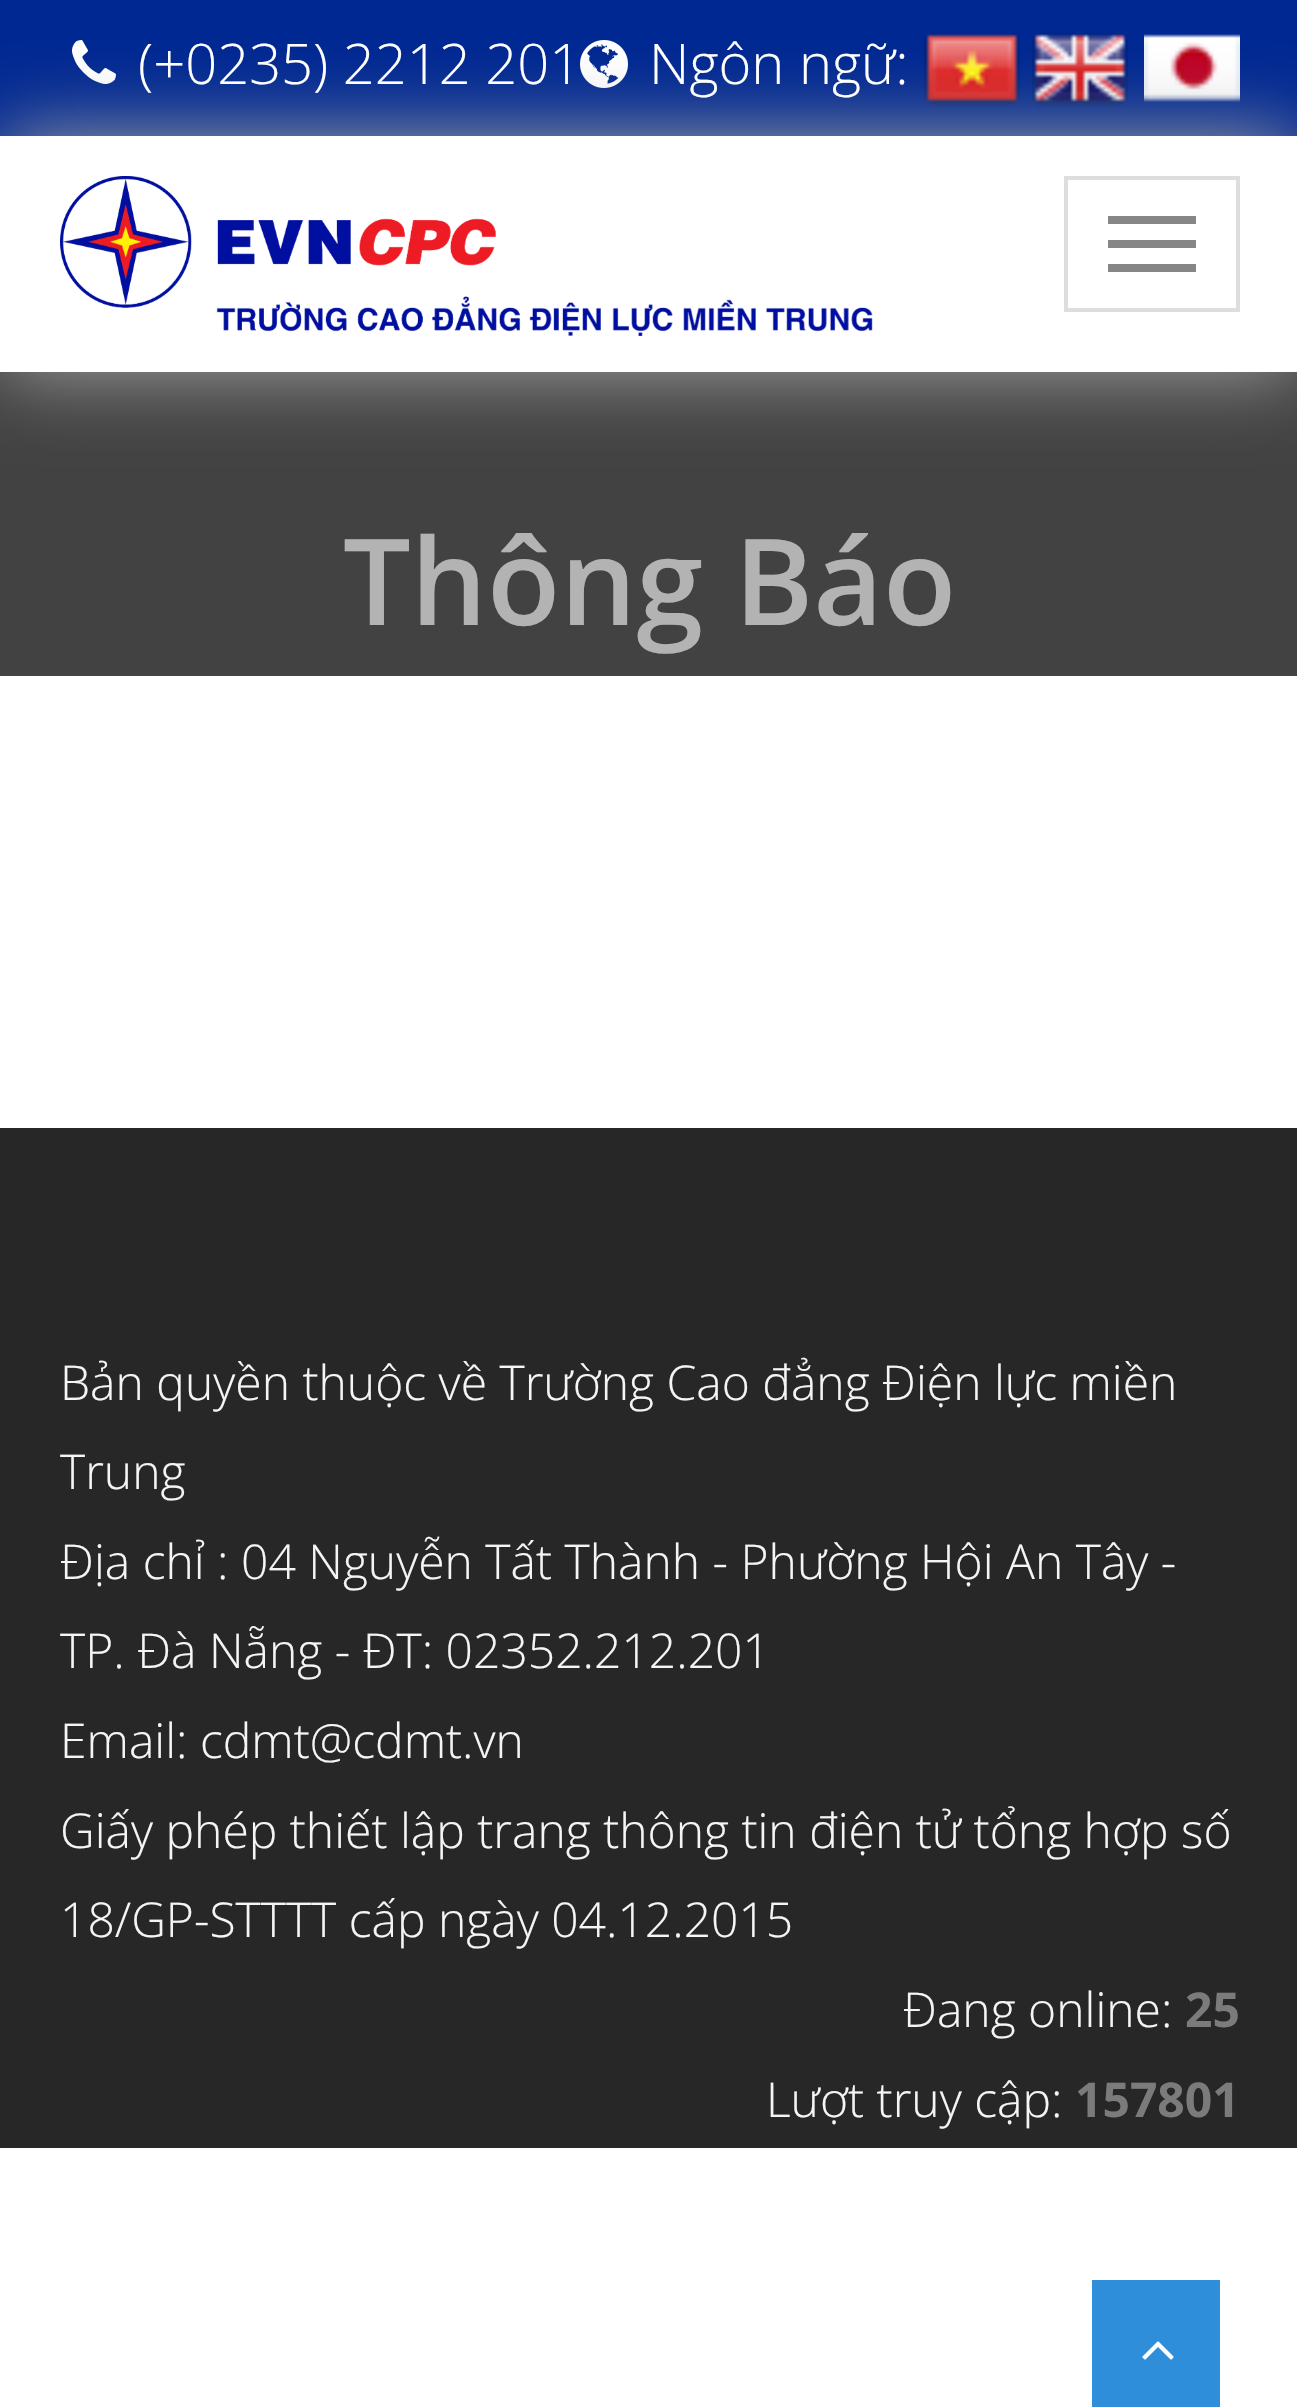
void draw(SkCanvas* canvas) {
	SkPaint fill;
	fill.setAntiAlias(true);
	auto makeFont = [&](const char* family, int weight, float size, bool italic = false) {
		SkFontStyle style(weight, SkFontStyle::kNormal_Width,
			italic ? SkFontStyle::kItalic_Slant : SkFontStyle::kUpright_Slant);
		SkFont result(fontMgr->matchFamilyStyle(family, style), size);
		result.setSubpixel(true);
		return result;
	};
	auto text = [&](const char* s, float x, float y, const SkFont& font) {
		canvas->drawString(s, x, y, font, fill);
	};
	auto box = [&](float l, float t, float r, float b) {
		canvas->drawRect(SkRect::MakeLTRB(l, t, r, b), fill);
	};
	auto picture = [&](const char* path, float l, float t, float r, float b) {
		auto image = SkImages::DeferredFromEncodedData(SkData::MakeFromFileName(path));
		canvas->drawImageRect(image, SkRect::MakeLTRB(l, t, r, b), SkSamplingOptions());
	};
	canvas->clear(0xFFFFFFFF);
	fill.setColor(0xFF002892);
	box(0, 0, 1297, 136);
	picture("image1.png", 72, 40, 116, 84);
	picture("image2.png", 580, 40, 628, 88);
	picture("image3.png", 924, 32, 1020, 108);
	picture("image4.png", 1032, 32, 1128, 108);
	picture("image5.png", 1144, 34, 1240, 102);
	fill.setColor(0xFF424242);
	box(0, 372, 1297, 676);
	canvas->save();
	canvas->clipPath(SkPathBuilder(SkPathFillType::kEvenOdd).moveTo(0, 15).lineTo(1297, 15).lineTo(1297, 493).lineTo(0, 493).close().moveTo(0, 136).lineTo(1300, 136).lineTo(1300, 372).lineTo(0, 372).close().detach(), true);
	fill.setColor(0xFFA3A3A3);
	fill.setMaskFilter(SkMaskFilter::MakeBlur(kNormal_SkBlurStyle, 40));
	canvas->drawRect(SkRect::MakeLTRB(0, 136, 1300, 372), fill);
	fill.setMaskFilter(nullptr);
	canvas->restore();
	picture("image0.png", 60, 176, 873, 336);
	fill.setStyle(SkPaint::kStroke_Style);
	fill.setStrokeWidth(4);
	fill.setColor(0xFFDDDDDD);
	canvas->drawRect(SkRect::MakeLTRB(1066, 178, 1238, 310), fill);
	fill.setStyle(SkPaint::kFill_Style);
	fill.setColor(0xFF868686);
	box(1108, 216, 1196, 224);
	box(1108, 240, 1196, 248);
	box(1108, 264, 1196, 272);
	fill.setColor(0xFF272727);
	box(0, 1128, 1297, 2148);
	fill.setColor(0xFF2E8EDA);
	box(1092, 2280, 1220, 2407);
	picture("image6.png", 1142, 2341, 1174, 2360);
	auto font1 = makeFont("Open Sans", 300, 56);
	fill.setColor(0xFFFFFFFF);
	text("(+0235) 2212 201", 138, 84, font1);
	text("Ngôn ngữ:", 649, 84, font1);
	auto font2 = makeFont("Open Sans", 600, 120);
	fill.setColor(0xFFB3B3B3);
	text("Thông Báo", 343, 625, font2);
	auto font3 = makeFont("Open Sans", 300, 48);
	fill.setColor(0xFFF5F5F5);
	text("Bản quyền thuộc về Trường Cao đẳng Điện lực miền", 60, 1400, font3);
	text("Trung", 60, 1489, font3);
	text("Địa chỉ : 04 Nguyễn Tất Thành - Phường Hội An Tây -", 60, 1579, font3);
	text("TP. Đà Nẵng - ĐT: 02352.212.201", 60, 1668, font3);
	text("Email: cdmt@cdmt.vn", 60, 1758, font3);
	text("Giấy phép thiết lập trang thông tin điện tử tổng hợp số", 60, 1848, font3);
	text("18/GP-STTTT cấp ngày 04.12.2015", 60, 1937, font3);
	text("Đang online:", 903, 2027, font3);
	auto font4 = makeFont("Open Sans", 700, 48);
	fill.setColor(0xFF7B7B7B);
	text("25", 1185, 2027, font4);
	fill.setColor(0xFFF5F5F5);
	text("Lượt truy cập:", 766, 2117, font3);
	fill.setColor(0xFF7B7B7B);
	text("157801", 1075, 2117, font4);
}
